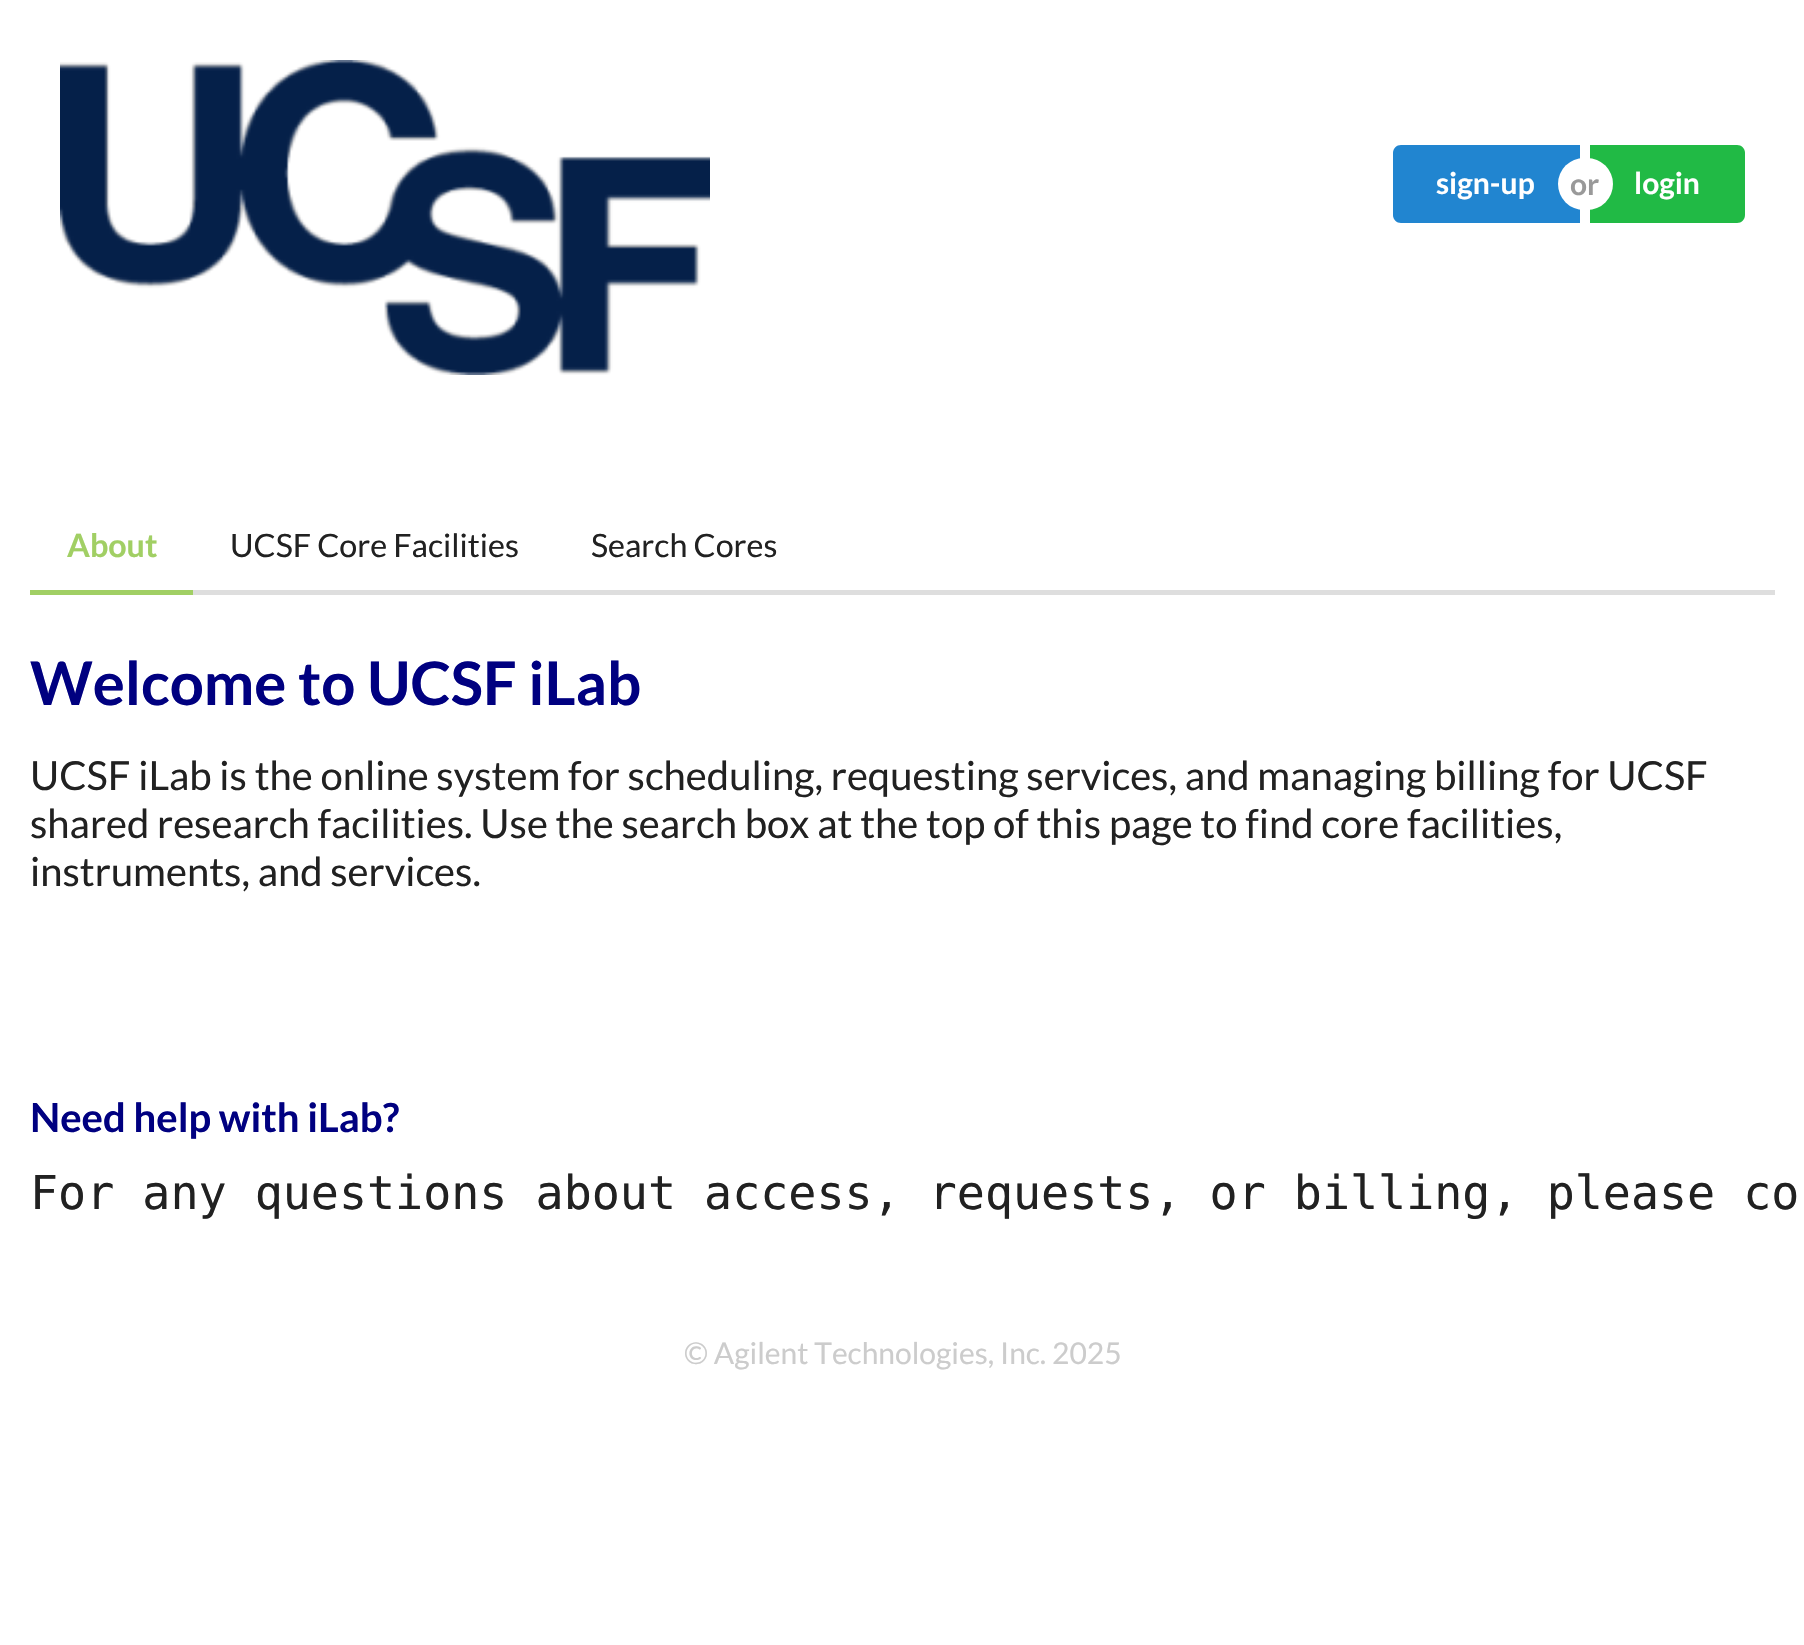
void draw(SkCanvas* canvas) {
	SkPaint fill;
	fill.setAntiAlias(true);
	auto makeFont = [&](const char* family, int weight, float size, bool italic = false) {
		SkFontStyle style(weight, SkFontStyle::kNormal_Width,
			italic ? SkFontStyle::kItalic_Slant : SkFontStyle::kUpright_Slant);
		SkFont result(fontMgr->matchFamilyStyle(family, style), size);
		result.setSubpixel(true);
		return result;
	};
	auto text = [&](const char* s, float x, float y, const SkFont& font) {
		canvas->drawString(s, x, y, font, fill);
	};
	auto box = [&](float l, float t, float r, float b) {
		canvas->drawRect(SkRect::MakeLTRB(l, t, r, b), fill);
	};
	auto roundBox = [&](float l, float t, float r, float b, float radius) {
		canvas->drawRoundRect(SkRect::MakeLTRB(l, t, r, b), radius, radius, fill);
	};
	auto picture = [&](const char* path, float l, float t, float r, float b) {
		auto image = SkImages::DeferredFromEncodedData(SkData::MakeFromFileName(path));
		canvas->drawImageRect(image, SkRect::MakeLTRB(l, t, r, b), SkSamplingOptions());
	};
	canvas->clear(0xFFFFFFFF);
	picture("image0.png", 60, 60, 710, 375);
	fill.setColor(0xFF2185D0);
	canvas->drawPath(SkPathBuilder().moveTo(1401, 145).lineTo(1580, 145).lineTo(1580, 223).lineTo(1401, 223).cubicTo(1396.5f, 223, 1393, 219.5f, 1393, 215).lineTo(1393, 153).cubicTo(1393, 148.5f, 1396.5f, 145, 1401, 145).close().detach(), fill);
	fill.setColor(0xFF21BA45);
	canvas->drawPath(SkPathBuilder().moveTo(1590, 145).lineTo(1737, 145).cubicTo(1741.5f, 145, 1745, 148.5f, 1745, 153).lineTo(1745, 215).cubicTo(1745, 219.5f, 1741.5f, 223, 1737, 223).lineTo(1590, 223).close().detach(), fill);
	fill.setColor(0xFFFFFFFF);
	roundBox(1558, 158, 1613, 210, 26);
	fill.setColor(0xFFDEDEDE);
	box(193, 590, 1775, 595);
	fill.setColor(0xFFA1CF64);
	box(30, 590, 193, 595);
	auto font1 = makeFont("Lato", 700, 30);
	fill.setColor(0xFFFFFFFF);
	text("sign-up", 1436, 194, font1);
	fill.setColor(0xFF999999);
	text("or", 1570, 195, font1);
	fill.setColor(0xFFFFFFFF);
	text("login", 1634, 194, font1);
	auto font2 = makeFont("Lato", 700, 32.25f);
	fill.setColor(0xFFA1CF64);
	text("About", 67, 557, font2);
	auto font3 = makeFont("Lato", 400, 32.25f);
	fill.setColor(0xFF212121);
	text("UCSF Core Facilities", 230, 557, font3);
	text("Search Cores", 591, 557, font3);
	auto font4 = makeFont("Lato", 700, 60);
	fill.setColor(0xFF000080);
	text("Welcome to UCSF iLab", 30, 705, font4);
	auto font5 = makeFont("Lato", 400, 40);
	fill.setColor(0xFF212121);
	text("UCSF iLab is the online system for scheduling, requesting services, and managing billing for UCSF", 30, 790, font5);
	text("shared research facilities. Use the search box at the top of this page to find core facilities,", 30, 838, font5);
	text("instruments, and services.", 30, 886, font5);
	auto font6 = makeFont("Lato", 700, 40);
	fill.setColor(0xFF000080);
	text("Need help with iLab?", 30, 1132, font6);
	auto font7 = makeFont("DejaVu Sans Mono", 400, 46.65f);
	fill.setColor(0xFF212121);
	text("For any questions about access, requests, or billing, please co", 30, 1209, font7);
	auto font8 = makeFont("Lato", 400, 30);
	fill.setColor(0xFFCCCCCC);
	text("© Agilent Technologies, Inc. 2025", 684, 1364, font8);
}
